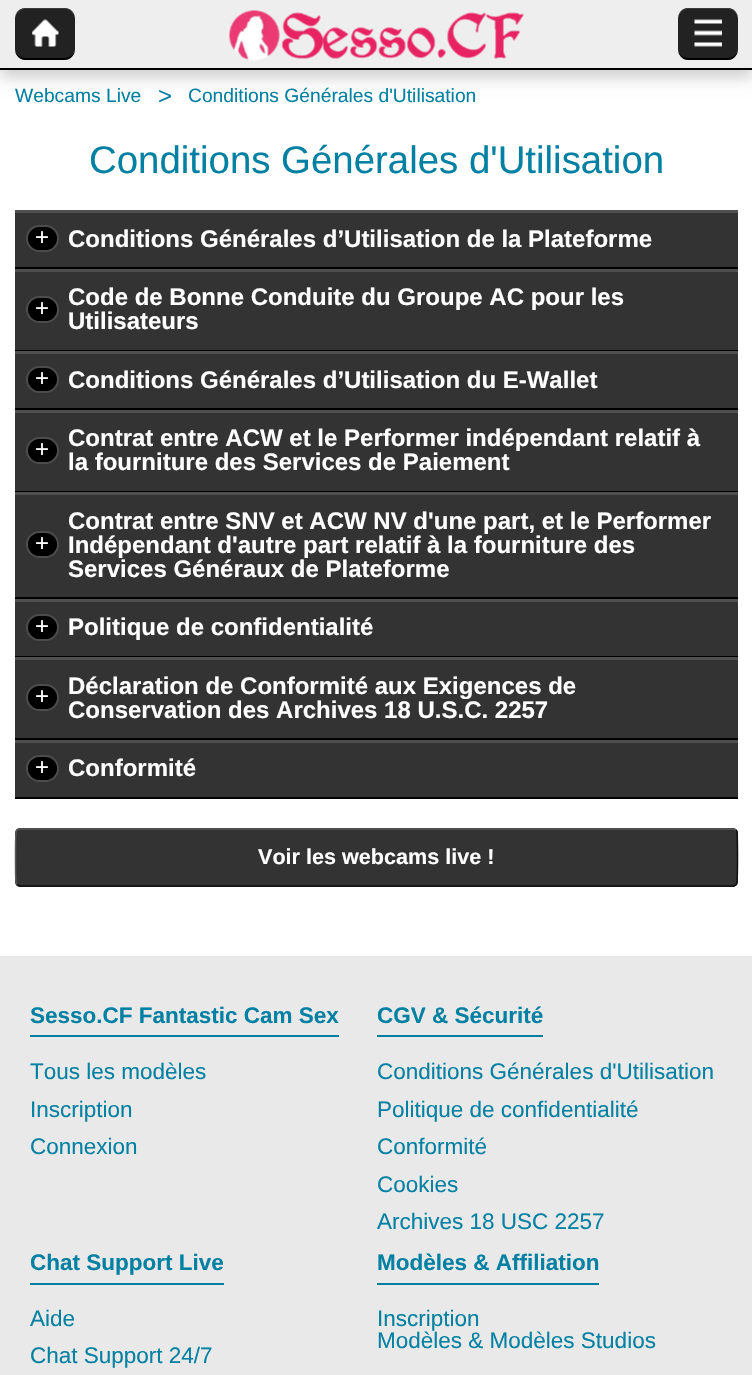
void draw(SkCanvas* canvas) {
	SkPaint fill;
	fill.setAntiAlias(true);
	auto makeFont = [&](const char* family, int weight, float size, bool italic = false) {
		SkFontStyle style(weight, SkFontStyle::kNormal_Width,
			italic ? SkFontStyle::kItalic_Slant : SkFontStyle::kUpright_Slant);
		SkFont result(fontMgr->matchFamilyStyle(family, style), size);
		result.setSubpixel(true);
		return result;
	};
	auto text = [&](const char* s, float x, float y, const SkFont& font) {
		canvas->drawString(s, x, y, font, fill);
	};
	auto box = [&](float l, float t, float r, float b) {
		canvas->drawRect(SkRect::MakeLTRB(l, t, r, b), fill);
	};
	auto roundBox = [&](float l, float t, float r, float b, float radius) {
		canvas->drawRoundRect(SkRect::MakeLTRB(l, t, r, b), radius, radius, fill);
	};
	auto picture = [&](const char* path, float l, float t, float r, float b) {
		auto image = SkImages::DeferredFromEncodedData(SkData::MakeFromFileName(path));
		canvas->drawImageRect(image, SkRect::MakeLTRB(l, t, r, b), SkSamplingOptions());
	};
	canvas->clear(0xFFFFFFFF);
	fill.setColor(0x33000000);
	fill.setMaskFilter(SkMaskFilter::MakeBlur(kNormal_SkBlurStyle, 7.5f));
	canvas->drawRect(SkRect::MakeLTRB(0, 8, 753, 77), fill);
	fill.setMaskFilter(nullptr);
	fill.setColor(0xFFEEEEEE);
	box(0, 0, 752, 68);
	fill.setColor(0xFF000000);
	box(0, 68, 752, 70);
	fill.setColor(0xFF222222);
	roundBox(15, 8, 75, 60, 11);
	fill.setColor(0xFF3C3C3C);
	canvas->drawPath(SkPathBuilder().moveTo(26, 8).cubicTo(20, 8, 15, 12, 15, 18).cubicTo(15, 13, 20, 9, 26, 9).lineTo(64, 9).cubicTo(70, 9, 75, 13, 75, 18).cubicTo(75, 12, 70, 8, 64, 8).close().detach(), fill);
	fill.setColor(0xFF000000);
	canvas->drawPath(SkPathBuilder().moveTo(64, 60).cubicTo(70, 60, 75, 55, 75, 50).cubicTo(75, 54, 70, 58, 64, 58).lineTo(26, 58).cubicTo(20, 58, 15, 54, 15, 50).cubicTo(15, 55, 20, 60, 26, 60).close().detach(), fill);
	picture("image0.png", 32, 19, 59, 47);
	picture("image1.png", 229, 10, 524, 61);
	fill.setColor(0xFF222222);
	roundBox(678, 8, 738, 60, 11);
	fill.setColor(0xFF3C3C3C);
	canvas->drawPath(SkPathBuilder().moveTo(688, 8).cubicTo(683, 8, 678, 12, 678, 18).cubicTo(678, 13, 683, 9, 688, 9).lineTo(728, 9).cubicTo(733, 9, 738, 13, 738, 18).cubicTo(738, 12, 733, 8, 728, 8).close().detach(), fill);
	fill.setColor(0xFF000000);
	canvas->drawPath(SkPathBuilder().moveTo(728, 60).cubicTo(733, 60, 738, 55, 738, 50).cubicTo(738, 54, 733, 58, 728, 58).lineTo(688, 58).cubicTo(683, 58, 678, 54, 678, 50).cubicTo(678, 55, 683, 60, 688, 60).close().detach(), fill);
	picture("image2.png", 694, 19, 722, 47);
	fill.setColor(0xFF333333);
	box(15, 213, 738, 267);
	fill.setColor(0xFF4F4F4F);
	box(15, 210, 738, 213);
	fill.setColor(0xFF000000);
	box(15, 267, 738, 269);
	canvas->drawRoundRect(SkRect::MakeLTRB(27, 226, 58, 251), 12.5f, 12.5f, fill);
	fill.setStyle(SkPaint::kStroke_Style);
	fill.setStrokeWidth(2);
	fill.setColor(0xFF4C4C4C);
	canvas->drawRoundRect(SkRect::MakeLTRB(27, 226, 58, 251), 12.5f, 12.5f, fill);
	fill.setStyle(SkPaint::kFill_Style);
	fill.setColor(0xFF333333);
	box(15, 272, 738, 350);
	fill.setColor(0xFF4F4F4F);
	box(15, 269, 738, 272);
	fill.setColor(0xFF000000);
	box(15, 350, 738, 351);
	canvas->drawRoundRect(SkRect::MakeLTRB(27, 297, 58, 322), 12.5f, 12.5f, fill);
	fill.setStyle(SkPaint::kStroke_Style);
	fill.setColor(0xFF4C4C4C);
	canvas->drawRoundRect(SkRect::MakeLTRB(27, 297, 58, 322), 12.5f, 12.5f, fill);
	fill.setStyle(SkPaint::kFill_Style);
	fill.setColor(0xFF333333);
	box(15, 354, 738, 408);
	fill.setColor(0xFF4F4F4F);
	box(15, 351, 738, 354);
	fill.setColor(0xFF000000);
	box(15, 408, 738, 410);
	canvas->drawRoundRect(SkRect::MakeLTRB(27, 367, 58, 392), 12.5f, 12.5f, fill);
	fill.setStyle(SkPaint::kStroke_Style);
	fill.setColor(0xFF4C4C4C);
	canvas->drawRoundRect(SkRect::MakeLTRB(27, 367, 58, 392), 12.5f, 12.5f, fill);
	fill.setStyle(SkPaint::kFill_Style);
	fill.setColor(0xFF333333);
	box(15, 413, 738, 491);
	fill.setColor(0xFF4F4F4F);
	box(15, 410, 738, 413);
	fill.setColor(0xFF000000);
	box(15, 491, 738, 492);
	canvas->drawRoundRect(SkRect::MakeLTRB(27, 438, 58, 463), 12.5f, 12.5f, fill);
	fill.setStyle(SkPaint::kStroke_Style);
	fill.setColor(0xFF4C4C4C);
	canvas->drawRoundRect(SkRect::MakeLTRB(27, 438, 58, 463), 12.5f, 12.5f, fill);
	fill.setStyle(SkPaint::kFill_Style);
	fill.setColor(0xFF333333);
	box(15, 495, 738, 597);
	fill.setColor(0xFF4F4F4F);
	box(15, 492, 738, 495);
	fill.setColor(0xFF000000);
	box(15, 597, 738, 599);
	canvas->drawRoundRect(SkRect::MakeLTRB(27, 532, 58, 557), 12.5f, 12.5f, fill);
	fill.setStyle(SkPaint::kStroke_Style);
	fill.setColor(0xFF4C4C4C);
	canvas->drawRoundRect(SkRect::MakeLTRB(27, 532, 58, 557), 12.5f, 12.5f, fill);
	fill.setStyle(SkPaint::kFill_Style);
	fill.setColor(0xFF333333);
	box(15, 602, 738, 656);
	fill.setColor(0xFF4F4F4F);
	box(15, 599, 738, 602);
	fill.setColor(0xFF000000);
	box(15, 656, 738, 657);
	canvas->drawRoundRect(SkRect::MakeLTRB(27, 615, 58, 640), 12.5f, 12.5f, fill);
	fill.setStyle(SkPaint::kStroke_Style);
	fill.setColor(0xFF4C4C4C);
	canvas->drawRoundRect(SkRect::MakeLTRB(27, 615, 58, 640), 12.5f, 12.5f, fill);
	fill.setStyle(SkPaint::kFill_Style);
	fill.setColor(0xFF333333);
	box(15, 660, 738, 738);
	fill.setColor(0xFF4F4F4F);
	box(15, 657, 738, 660);
	fill.setColor(0xFF000000);
	box(15, 738, 738, 740);
	canvas->drawRoundRect(SkRect::MakeLTRB(27, 685, 58, 710), 12.5f, 12.5f, fill);
	fill.setStyle(SkPaint::kStroke_Style);
	fill.setColor(0xFF4C4C4C);
	canvas->drawRoundRect(SkRect::MakeLTRB(27, 685, 58, 710), 12.5f, 12.5f, fill);
	fill.setStyle(SkPaint::kFill_Style);
	fill.setColor(0xFF333333);
	box(15, 743, 738, 797);
	fill.setColor(0xFF4F4F4F);
	box(15, 740, 738, 743);
	fill.setColor(0xFF000000);
	box(15, 797, 738, 799);
	canvas->drawRoundRect(SkRect::MakeLTRB(27, 756, 58, 781), 12.5f, 12.5f, fill);
	fill.setStyle(SkPaint::kStroke_Style);
	fill.setColor(0xFF4C4C4C);
	canvas->drawRoundRect(SkRect::MakeLTRB(27, 756, 58, 781), 12.5f, 12.5f, fill);
	fill.setStyle(SkPaint::kFill_Style);
	fill.setColor(0xFF333333);
	roundBox(15, 828, 738, 887, 5);
	fill.setStyle(SkPaint::kStroke_Style);
	fill.setStrokeWidth(1.5f);
	fill.setColor(0xFF0D0D0D);
	canvas->drawPath(SkPathBuilder().moveTo(736, 830).lineTo(737, 832).cubicTo(737.5f, 837, 738, 882.5f, 736.5f, 884).cubicTo(736, 885, 734.5f, 885.5f, 733.5f, 886).lineTo(19.5f, 886).lineTo(17, 884.5f).detach(), fill);
	fill.setColor(0xFF595959);
	canvas->drawPath(SkPathBuilder().moveTo(17, 884.5f).lineTo(16, 882.5f).cubicTo(15.5f, 877.5f, 15, 832, 16.5f, 830.5f).cubicTo(17, 829.5f, 18.5f, 829, 19.5f, 829).lineTo(733.5f, 829).lineTo(736, 830).detach(), fill);
	fill.setStyle(SkPaint::kFill_Style);
	fill.setColor(0xFFE9E9E9);
	box(0, 956, 752, 1375);
	fill.setColor(0xFF0080A2);
	box(30, 1035, 339, 1037);
	box(377, 1035, 543, 1037);
	box(30, 1283, 224, 1285);
	box(377, 1283, 599, 1285);
	auto font1 = makeFont("Liberation Sans", 400, 19.25f);
	text("Webcams Live", 15, 102, font1);
	auto font2 = makeFont("Liberation Sans", 400, 24);
	text(">", 158, 104, font2);
	text("Conditions Générales d'Utilisation", 188, 102, font1);
	auto font3 = makeFont("Liberation Sans", 400, 38.4f);
	text("Conditions Générales d'Utilisation", 89, 173, font3);
	fill.setColor(0xFFFFFFFF);
	text("+", 35, 245, font2);
	auto font4 = makeFont("Liberation Sans", 700, 24);
	text("Conditions Générales d’Utilisation de la Plateforme", 68, 247, font4);
	text("+", 35, 316, font2);
	text("Code de Bonne Conduite du Groupe AC pour les", 68, 305, font4);
	text("Utilisateurs", 68, 329, font4);
	text("+", 35, 386, font2);
	text("Conditions Générales d’Utilisation du E-Wallet", 68, 388, font4);
	text("+", 35, 457, font2);
	text("Contrat entre ACW et le Performer indépendant relatif à", 68, 446, font4);
	text("la fourniture des Services de Paiement", 68, 470, font4);
	text("+", 35, 551, font2);
	text("Contrat entre SNV et ACW NV d'une part, et le Performer", 68, 529, font4);
	text("Indépendant d'autre part relatif à la fourniture des", 68, 553, font4);
	text("Services Généraux de Plateforme", 68, 577, font4);
	text("+", 35, 634, font2);
	text("Politique de confidentialité", 68, 635, font4);
	text("+", 35, 704, font2);
	text("Déclaration de Conformité aux Exigences de", 68, 694, font4);
	text("Conservation des Archives 18 U.S.C. 2257", 68, 718, font4);
	text("+", 35, 775, font2);
	text("Conformité", 68, 776, font4);
	auto font5 = makeFont("Liberation Sans", 700, 21.6f);
	text("Voir les webcams live !", 258, 864, font5);
	auto font6 = makeFont("Liberation Sans", 700, 22.5f);
	fill.setColor(0xFF0080A2);
	text("Sesso.CF Fantastic Cam Sex", 30, 1023, font6);
	auto font7 = makeFont("Liberation Sans", 400, 22.5f);
	text("Tous les modèles", 30, 1079, font7);
	text("Inscription", 30, 1117, font7);
	text("Connexion", 30, 1154, font7);
	text("CGV & Sécurité", 377, 1023, font6);
	text("Conditions Générales d'Utilisation", 377, 1079, font7);
	text("Politique de confidentialité", 377, 1117, font7);
	text("Conformité", 377, 1154, font7);
	text("Cookies", 377, 1192, font7);
	text("Archives 18 USC 2257", 377, 1229, font7);
	text("Chat Support Live", 30, 1270, font6);
	text("Aide", 30, 1326, font7);
	text("Chat Support 24/7", 30, 1363, font7);
	text("Modèles & Affiliation", 377, 1270, font6);
	text("Inscription", 377, 1326, font7);
	text("Modèles & Modèles Studios", 377, 1348, font7);
}
